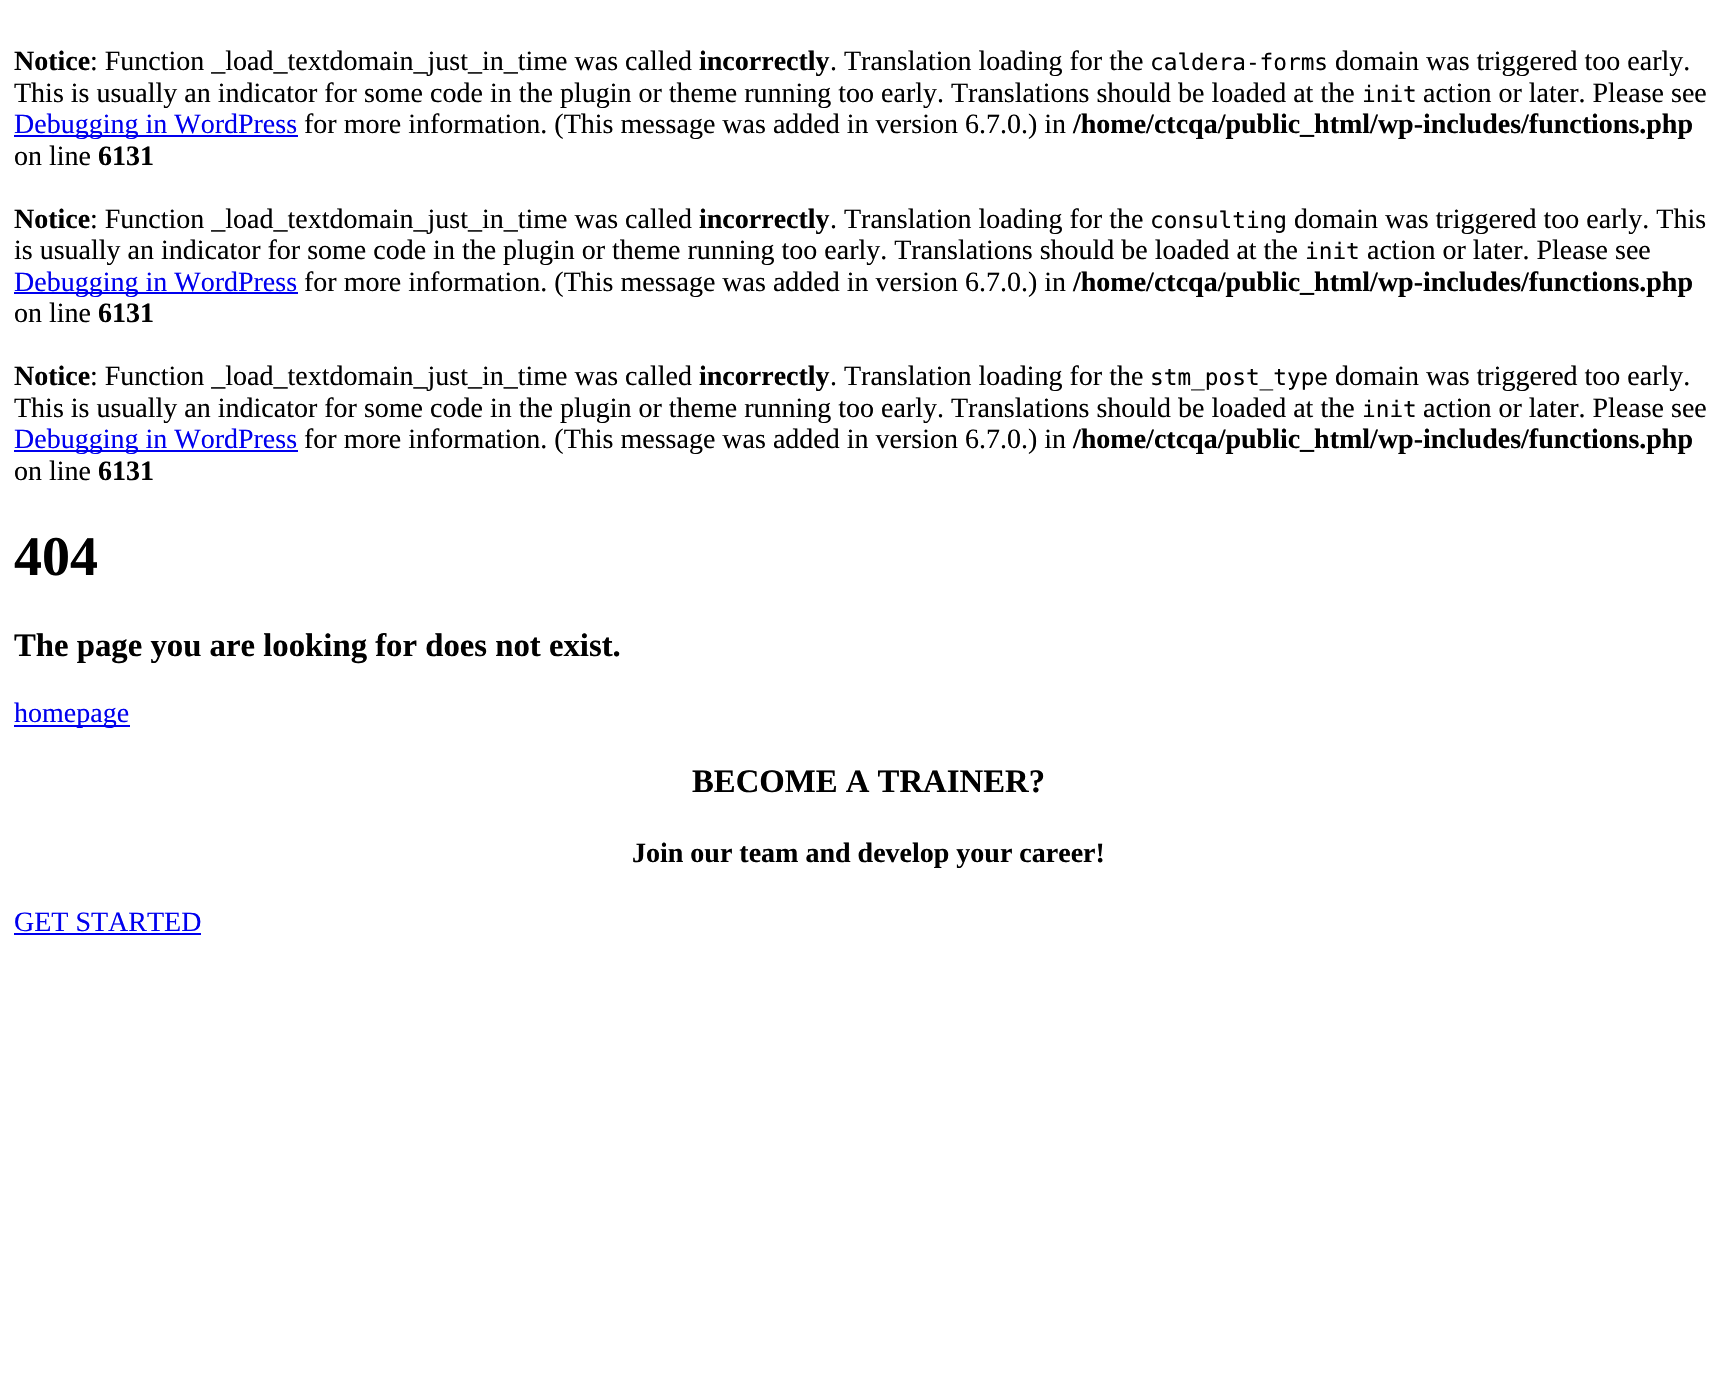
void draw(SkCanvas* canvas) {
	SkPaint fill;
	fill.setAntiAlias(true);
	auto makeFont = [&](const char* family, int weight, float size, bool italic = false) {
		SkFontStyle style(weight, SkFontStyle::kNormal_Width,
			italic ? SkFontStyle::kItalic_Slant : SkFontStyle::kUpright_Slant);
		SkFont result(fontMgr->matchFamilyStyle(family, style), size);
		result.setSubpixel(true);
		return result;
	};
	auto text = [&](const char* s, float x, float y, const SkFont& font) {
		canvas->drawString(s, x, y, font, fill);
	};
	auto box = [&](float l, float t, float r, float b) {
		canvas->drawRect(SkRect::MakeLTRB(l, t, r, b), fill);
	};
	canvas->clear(0xFFFFFFFF);
	fill.setColor(0xFF0000EE);
	box(14, 135, 298, 137);
	box(14, 292, 298, 294);
	box(14, 450, 298, 452);
	box(14, 725, 130, 727);
	box(14, 933, 201, 935);
	auto font1 = makeFont("Liberation Serif", 700, 28);
	fill.setColor(0xFF000000);
	text("Notice", 14, 70, font1);
	auto font2 = makeFont("Liberation Serif", 400, 28);
	text(": Function _load_textdomain_just_in_time was called", 90, 70, font2);
	text("incorrectly", 699, 70, font1);
	text(". Translation loading for the", 830, 70, font2);
	auto font3 = makeFont("DejaVu Sans Mono", 400, 22.75f);
	text("caldera-forms", 1150, 70, font3);
	text("domain was triggered too early.", 1335, 70, font2);
	text("This is usually an indicator for some code in the plugin or theme running too early. Translations should be loaded at the", 14, 102, font2);
	text("init", 1362, 102, font3);
	text("action or later. Please see", 1423, 102, font2);
	fill.setColor(0xFF0000EE);
	text("Debugging in WordPress", 14, 133, font2);
	fill.setColor(0xFF000000);
	text("for more information. (This message was added in version 6.7.0.) in", 304, 133, font2);
	text("/home/ctcqa/public_html/wp-includes/functions.php", 1073, 133, font1);
	text("on line", 14, 165, font2);
	text("6131", 98, 165, font1);
	text("Notice", 14, 228, font1);
	text(": Function _load_textdomain_just_in_time was called", 90, 228, font2);
	text("incorrectly", 699, 228, font1);
	text(". Translation loading for the", 830, 228, font2);
	text("consulting", 1150, 228, font3);
	text("domain was triggered too early. This", 1294, 228, font2);
	text("is usually an indicator for some code in the plugin or theme running too early. Translations should be loaded at the", 14, 259, font2);
	text("init", 1305, 259, font3);
	text("action or later. Please see", 1367, 259, font2);
	fill.setColor(0xFF0000EE);
	text("Debugging in WordPress", 14, 291, font2);
	fill.setColor(0xFF000000);
	text("for more information. (This message was added in version 6.7.0.) in", 304, 291, font2);
	text("/home/ctcqa/public_html/wp-includes/functions.php", 1073, 291, font1);
	text("on line", 14, 322, font2);
	text("6131", 98, 322, font1);
	text("Notice", 14, 385, font1);
	text(": Function _load_textdomain_just_in_time was called", 90, 385, font2);
	text("incorrectly", 699, 385, font1);
	text(". Translation loading for the", 830, 385, font2);
	text("stm_post_type", 1150, 385, font3);
	text("domain was triggered too early.", 1335, 385, font2);
	text("This is usually an indicator for some code in the plugin or theme running too early. Translations should be loaded at the", 14, 417, font2);
	text("init", 1362, 417, font3);
	text("action or later. Please see", 1423, 417, font2);
	fill.setColor(0xFF0000EE);
	text("Debugging in WordPress", 14, 448, font2);
	fill.setColor(0xFF000000);
	text("for more information. (This message was added in version 6.7.0.) in", 304, 448, font2);
	text("/home/ctcqa/public_html/wp-includes/functions.php", 1073, 448, font1);
	text("on line", 14, 480, font2);
	text("6131", 98, 480, font1);
	auto font4 = makeFont("Liberation Serif", 700, 56);
	text("404", 14, 575, font4);
	auto font5 = makeFont("Liberation Serif", 700, 32.75f);
	text("The page you are looking for does not exist.", 14, 656, font5);
	fill.setColor(0xFF0000EE);
	text("homepage", 14, 722, font2);
	fill.setColor(0xFF000000);
	text("BECOME A TRAINER?", 692, 792, font5);
	text("Join our team and develop your career!", 632, 862, font1);
	fill.setColor(0xFF0000EE);
	text("GET STARTED", 14, 931, font2);
}
